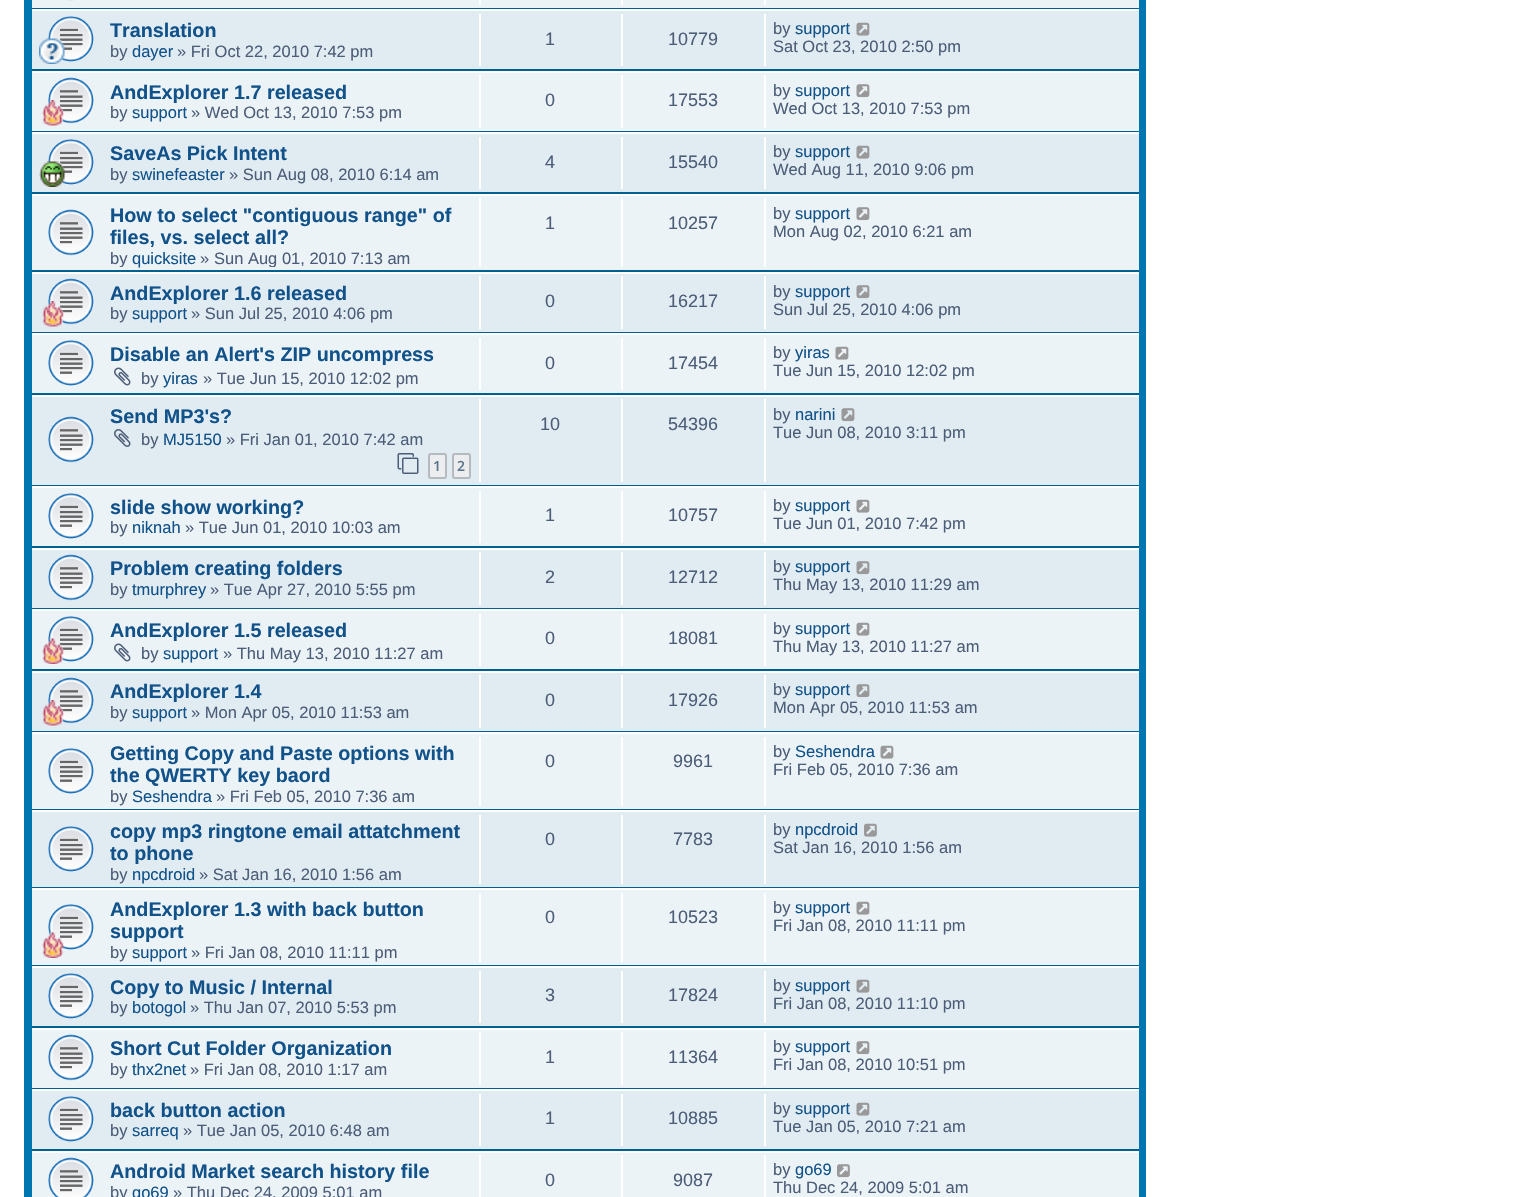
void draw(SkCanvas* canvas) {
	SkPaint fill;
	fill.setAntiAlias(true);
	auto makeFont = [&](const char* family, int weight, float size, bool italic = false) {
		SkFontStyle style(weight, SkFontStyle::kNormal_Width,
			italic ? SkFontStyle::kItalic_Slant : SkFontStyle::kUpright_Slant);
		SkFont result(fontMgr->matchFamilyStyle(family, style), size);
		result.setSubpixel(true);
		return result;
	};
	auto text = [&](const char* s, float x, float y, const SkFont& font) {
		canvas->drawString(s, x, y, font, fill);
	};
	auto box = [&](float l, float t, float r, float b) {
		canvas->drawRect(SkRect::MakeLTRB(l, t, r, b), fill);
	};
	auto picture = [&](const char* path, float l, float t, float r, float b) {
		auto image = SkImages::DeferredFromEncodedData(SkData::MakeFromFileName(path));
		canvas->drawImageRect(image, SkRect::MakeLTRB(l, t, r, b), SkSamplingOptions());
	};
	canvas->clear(0xFFFFFFFF);
	fill.setColor(0xFF0076B1);
	box(24, 0, 1146, 1197);
	fill.setColor(0xFFECF3F7);
	box(32, 0, 1139, 8);
	fill.setColor(0xFF00608F);
	box(32, 8, 1139, 9);
	picture("image0.png", 68, 0, 74, 1);
	fill.setColor(0xFFFFFFFF);
	box(479, 0, 481, 5);
	box(621, 0, 623, 5);
	box(764, 0, 766, 5);
	fill.setColor(0xFFE1EBF2);
	box(32, 11, 1139, 69);
	fill.setColor(0xFFFFFFFF);
	box(32, 9, 1139, 11);
	fill.setColor(0xFF00608F);
	box(32, 69, 1139, 71);
	picture("image1.png", 48, 16, 94, 62);
	picture("image2.png", 39, 38, 65, 64);
	fill.setColor(0xFFFFFFFF);
	box(479, 14, 481, 66);
	box(621, 14, 623, 66);
	box(764, 14, 766, 66);
	picture("image3.png", 856, 22, 870, 36);
	fill.setColor(0xFFECF3F7);
	box(32, 73, 1139, 131);
	fill.setColor(0xFFFFFFFF);
	box(32, 71, 1139, 73);
	fill.setColor(0xFF00608F);
	box(32, 131, 1139, 132);
	picture("image4.png", 48, 77, 94, 124);
	picture("image5.png", 42, 100, 64, 126);
	fill.setColor(0xFFFFFFFF);
	box(479, 75, 481, 128);
	box(621, 75, 623, 128);
	box(764, 75, 766, 128);
	picture("image6.png", 856, 84, 870, 98);
	fill.setColor(0xFFE1EBF2);
	box(32, 134, 1139, 192);
	fill.setColor(0xFFFFFFFF);
	box(32, 132, 1139, 134);
	fill.setColor(0xFF00608F);
	box(32, 192, 1139, 194);
	picture("image1.png", 48, 139, 94, 185);
	picture("image7.png", 39, 161, 65, 187);
	fill.setColor(0xFFFFFFFF);
	box(479, 137, 481, 189);
	box(621, 137, 623, 189);
	box(764, 137, 766, 189);
	picture("image3.png", 856, 145, 870, 159);
	fill.setColor(0xFFECF3F7);
	box(32, 196, 1139, 270);
	fill.setColor(0xFFFFFFFF);
	box(32, 194, 1139, 196);
	fill.setColor(0xFF00608F);
	box(32, 270, 1139, 272);
	picture("image4.png", 48, 209, 94, 256);
	fill.setColor(0xFFFFFFFF);
	box(479, 198, 481, 267);
	box(621, 198, 623, 267);
	box(764, 198, 766, 267);
	picture("image6.png", 856, 207, 870, 221);
	fill.setColor(0xFFE1EBF2);
	box(32, 274, 1139, 332);
	fill.setColor(0xFFFFFFFF);
	box(32, 272, 1139, 274);
	fill.setColor(0xFF00608F);
	box(32, 332, 1139, 333);
	picture("image8.png", 48, 278, 94, 325);
	picture("image9.png", 42, 301, 64, 327);
	fill.setColor(0xFFFFFFFF);
	box(479, 276, 481, 329);
	box(621, 276, 623, 329);
	box(764, 276, 766, 329);
	picture("image10.png", 856, 285, 870, 299);
	fill.setColor(0xFFECF3F7);
	box(32, 335, 1139, 393);
	fill.setColor(0xFFFFFFFF);
	box(32, 333, 1139, 335);
	fill.setColor(0xFF00608F);
	box(32, 393, 1139, 395);
	picture("image11.png", 48, 340, 94, 386);
	picture("image12.png", 114, 367, 131, 386);
	fill.setColor(0xFFFFFFFF);
	box(479, 338, 481, 390);
	box(621, 338, 623, 390);
	box(764, 338, 766, 390);
	picture("image13.png", 835, 346, 849, 360);
	fill.setColor(0xFFE1EBF2);
	box(32, 397, 1139, 485);
	fill.setColor(0xFFFFFFFF);
	box(32, 395, 1139, 397);
	fill.setColor(0xFF00608F);
	box(32, 485, 1139, 486);
	picture("image8.png", 48, 416, 94, 463);
	picture("image14.png", 114, 429, 131, 447);
	picture("image15.png", 397, 453, 419, 474);
	fill.setColor(0xFFECEDEE);
	canvas->drawRoundRect(SkRect::MakeLTRB(429, 454, 446, 478), 2, 2, fill);
	fill.setStyle(SkPaint::kStroke_Style);
	fill.setStrokeWidth(2);
	fill.setColor(0xFFB4BAC0);
	canvas->drawRoundRect(SkRect::MakeLTRB(429, 454, 446, 478), 2, 2, fill);
	fill.setStyle(SkPaint::kFill_Style);
	fill.setColor(0xFFECEDEE);
	canvas->drawRoundRect(SkRect::MakeLTRB(453, 454, 470, 478), 2, 2, fill);
	fill.setStyle(SkPaint::kStroke_Style);
	fill.setColor(0xFFB4BAC0);
	canvas->drawRoundRect(SkRect::MakeLTRB(453, 454, 470, 478), 2, 2, fill);
	fill.setStyle(SkPaint::kFill_Style);
	fill.setColor(0xFFFFFFFF);
	box(479, 399, 481, 482);
	box(621, 399, 623, 482);
	box(764, 399, 766, 482);
	picture("image10.png", 841, 408, 855, 422);
	fill.setColor(0xFFECF3F7);
	box(32, 488, 1139, 546);
	fill.setColor(0xFFFFFFFF);
	box(32, 486, 1139, 488);
	fill.setColor(0xFF00608F);
	box(32, 546, 1139, 548);
	picture("image11.png", 48, 493, 94, 539);
	fill.setColor(0xFFFFFFFF);
	box(479, 491, 481, 543);
	box(621, 491, 623, 543);
	box(764, 491, 766, 543);
	picture("image13.png", 856, 499, 870, 513);
	fill.setColor(0xFFE1EBF2);
	box(32, 550, 1139, 608);
	fill.setColor(0xFFFFFFFF);
	box(32, 548, 1139, 550);
	fill.setColor(0xFF00608F);
	box(32, 608, 1139, 609);
	picture("image8.png", 48, 554, 94, 601);
	fill.setColor(0xFFFFFFFF);
	box(479, 552, 481, 605);
	box(621, 552, 623, 605);
	box(764, 552, 766, 605);
	picture("image10.png", 856, 561, 870, 575);
	fill.setColor(0xFFECF3F7);
	box(32, 611, 1139, 669);
	fill.setColor(0xFFFFFFFF);
	box(32, 609, 1139, 611);
	fill.setColor(0xFF00608F);
	box(32, 669, 1139, 671);
	picture("image11.png", 48, 616, 94, 662);
	picture("image16.png", 42, 638, 64, 664);
	picture("image12.png", 114, 643, 131, 662);
	fill.setColor(0xFFFFFFFF);
	box(479, 614, 481, 666);
	box(621, 614, 623, 666);
	box(764, 614, 766, 666);
	picture("image13.png", 856, 622, 870, 636);
	fill.setColor(0xFFE1EBF2);
	box(32, 673, 1139, 731);
	fill.setColor(0xFFFFFFFF);
	box(32, 671, 1139, 673);
	fill.setColor(0xFF00608F);
	box(32, 731, 1139, 732);
	picture("image8.png", 48, 677, 94, 724);
	picture("image9.png", 42, 700, 64, 726);
	fill.setColor(0xFFFFFFFF);
	box(479, 675, 481, 728);
	box(621, 675, 623, 728);
	box(764, 675, 766, 728);
	picture("image10.png", 856, 684, 870, 698);
	fill.setColor(0xFFECF3F7);
	box(32, 734, 1139, 809);
	fill.setColor(0xFFFFFFFF);
	box(32, 732, 1139, 734);
	fill.setColor(0xFF00608F);
	box(32, 809, 1139, 810);
	picture("image11.png", 48, 748, 94, 794);
	fill.setColor(0xFFFFFFFF);
	box(479, 737, 481, 806);
	box(621, 737, 623, 806);
	box(764, 737, 766, 806);
	picture("image13.png", 880, 745, 894, 759);
	fill.setColor(0xFFE1EBF2);
	box(32, 812, 1139, 887);
	fill.setColor(0xFFFFFFFF);
	box(32, 810, 1139, 812);
	fill.setColor(0xFF00608F);
	box(32, 887, 1139, 888);
	picture("image1.png", 48, 826, 94, 872);
	fill.setColor(0xFFFFFFFF);
	box(479, 815, 481, 884);
	box(621, 815, 623, 884);
	box(764, 815, 766, 884);
	picture("image17.png", 864, 823, 877, 837);
	fill.setColor(0xFFECF3F7);
	box(32, 890, 1139, 965);
	fill.setColor(0xFFFFFFFF);
	box(32, 888, 1139, 890);
	fill.setColor(0xFF00608F);
	box(32, 965, 1139, 966);
	picture("image11.png", 48, 904, 94, 950);
	picture("image18.png", 42, 932, 64, 958);
	fill.setColor(0xFFFFFFFF);
	box(479, 893, 481, 962);
	box(621, 893, 623, 962);
	box(764, 893, 766, 962);
	picture("image13.png", 856, 901, 870, 915);
	fill.setColor(0xFFE1EBF2);
	box(32, 968, 1139, 1026);
	fill.setColor(0xFFFFFFFF);
	box(32, 966, 1139, 968);
	fill.setColor(0xFF00608F);
	box(32, 1026, 1139, 1028);
	picture("image1.png", 48, 973, 94, 1019);
	fill.setColor(0xFFFFFFFF);
	box(479, 971, 481, 1023);
	box(621, 971, 623, 1023);
	box(764, 971, 766, 1023);
	picture("image3.png", 856, 979, 870, 993);
	fill.setColor(0xFFECF3F7);
	box(32, 1030, 1139, 1088);
	fill.setColor(0xFFFFFFFF);
	box(32, 1028, 1139, 1030);
	fill.setColor(0xFF00608F);
	box(32, 1088, 1139, 1089);
	picture("image4.png", 48, 1034, 94, 1081);
	fill.setColor(0xFFFFFFFF);
	box(479, 1032, 481, 1085);
	box(621, 1032, 623, 1085);
	box(764, 1032, 766, 1085);
	picture("image6.png", 856, 1041, 870, 1055);
	fill.setColor(0xFFE1EBF2);
	box(32, 1091, 1139, 1149);
	fill.setColor(0xFFFFFFFF);
	box(32, 1089, 1139, 1091);
	fill.setColor(0xFF00608F);
	box(32, 1149, 1139, 1151);
	picture("image1.png", 48, 1096, 94, 1142);
	fill.setColor(0xFFFFFFFF);
	box(479, 1094, 481, 1146);
	box(621, 1094, 623, 1146);
	box(764, 1094, 766, 1146);
	picture("image3.png", 856, 1102, 870, 1116);
	fill.setColor(0xFFECF3F7);
	box(32, 1153, 1139, 1197);
	fill.setColor(0xFFFFFFFF);
	box(32, 1151, 1139, 1153);
	picture("image19.png", 48, 1157, 94, 1197);
	box(479, 1155, 481, 1197);
	box(621, 1155, 623, 1197);
	box(764, 1155, 766, 1197);
	picture("image20.png", 837, 1164, 850, 1178);
	auto font1 = makeFont("Liberation Sans", 700, 19.75f);
	fill.setColor(0xFF105289);
	text("Translation", 110, 37, font1);
	auto font2 = makeFont("Liberation Sans", 400, 16.5f);
	fill.setColor(0xFF4C5D77);
	text("by", 110, 57, font2);
	fill.setColor(0xFF105289);
	text("dayer", 132, 57, font2);
	fill.setColor(0xFF4C5D77);
	text("» Fri Oct 22, 2010 7:42 pm", 177, 57, font2);
	auto font3 = makeFont("Liberation Sans", 400, 18);
	text("1", 545, 45, font3);
	text("10779", 668, 45, font3);
	text("by", 773, 34, font2);
	fill.setColor(0xFF105289);
	text("support", 795, 34, font2);
	fill.setColor(0xFF4C5D77);
	text("Sat Oct 23, 2010 2:50 pm", 773, 52, font2);
	fill.setColor(0xFF105289);
	text("AndExplorer 1.7 released", 110, 99, font1);
	fill.setColor(0xFF4C5D77);
	text("by", 110, 118, font2);
	fill.setColor(0xFF105289);
	text("support", 132, 118, font2);
	fill.setColor(0xFF4C5D77);
	text("» Wed Oct 13, 2010 7:53 pm", 191, 118, font2);
	text("0", 545, 106, font3);
	text("17553", 668, 106, font3);
	text("by", 773, 96, font2);
	fill.setColor(0xFF105289);
	text("support", 795, 96, font2);
	fill.setColor(0xFF4C5D77);
	text("Wed Oct 13, 2010 7:53 pm", 773, 114, font2);
	fill.setColor(0xFF105289);
	text("SaveAs Pick Intent", 110, 160, font1);
	fill.setColor(0xFF4C5D77);
	text("by", 110, 180, font2);
	fill.setColor(0xFF105289);
	text("swinefeaster", 132, 180, font2);
	fill.setColor(0xFF4C5D77);
	text("» Sun Aug 08, 2010 6:14 am", 229, 180, font2);
	text("4", 545, 168, font3);
	text("15540", 668, 168, font3);
	text("by", 773, 157, font2);
	fill.setColor(0xFF105289);
	text("support", 795, 157, font2);
	fill.setColor(0xFF4C5D77);
	text("Wed Aug 11, 2010 9:06 pm", 773, 175, font2);
	fill.setColor(0xFF105289);
	text("How to select \"contiguous range\" of", 110, 222, font1);
	text("files, vs. select all?", 110, 244, font1);
	canvas->save();
	canvas->clipRect(SkRect::MakeLTRB(32, 198, 1139, 267));
	fill.setColor(0xFF4C5D77);
	text("by", 110, 264, font2);
	canvas->restore();
	fill.setColor(0xFF105289);
	text("quicksite", 132, 264, font2);
	fill.setColor(0xFF4C5D77);
	text("»", 200, 264, font2);
	canvas->save();
	canvas->clipRect(SkRect::MakeLTRB(32, 198, 1139, 267));
	text("Sun Aug 01, 2010 7:13 am", 214, 264, font2);
	canvas->restore();
	text("1", 545, 229, font3);
	text("10257", 668, 229, font3);
	text("by", 773, 219, font2);
	fill.setColor(0xFF105289);
	text("support", 795, 219, font2);
	fill.setColor(0xFF4C5D77);
	text("Mon Aug 02, 2010 6:21 am", 773, 237, font2);
	fill.setColor(0xFF105289);
	text("AndExplorer 1.6 released", 110, 300, font1);
	fill.setColor(0xFF4C5D77);
	text("by", 110, 319, font2);
	fill.setColor(0xFF105289);
	text("support", 132, 319, font2);
	fill.setColor(0xFF4C5D77);
	text("» Sun Jul 25, 2010 4:06 pm", 191, 319, font2);
	text("0", 545, 307, font3);
	text("16217", 668, 307, font3);
	text("by", 773, 297, font2);
	fill.setColor(0xFF105289);
	text("support", 795, 297, font2);
	fill.setColor(0xFF4C5D77);
	text("Sun Jul 25, 2010 4:06 pm", 773, 315, font2);
	fill.setColor(0xFF105289);
	text("Disable an Alert's ZIP uncompress", 110, 361, font1);
	fill.setColor(0xFF4C5D77);
	text("by", 141, 384, font2);
	fill.setColor(0xFF105289);
	text("yiras", 163, 384, font2);
	fill.setColor(0xFF4C5D77);
	text("» Tue Jun 15, 2010 12:02 pm", 203, 384, font2);
	text("0", 545, 369, font3);
	text("17454", 668, 369, font3);
	text("by", 773, 358, font2);
	fill.setColor(0xFF105289);
	text("yiras", 795, 358, font2);
	fill.setColor(0xFF4C5D77);
	text("Tue Jun 15, 2010 12:02 pm", 773, 376, font2);
	fill.setColor(0xFF105289);
	text("Send MP3's?", 110, 423, font1);
	fill.setColor(0xFF4C5D77);
	text("by", 141, 445, font2);
	fill.setColor(0xFF105289);
	text("MJ5150", 163, 445, font2);
	fill.setColor(0xFF4C5D77);
	text("» Fri Jan 01, 2010 7:42 am", 226, 445, font2);
	auto font4 = makeFont("Open Sans", 600, 14);
	fill.setColor(0xFF5C758C);
	text("1", 433, 471, font4);
	text("2", 457, 471, font4);
	fill.setColor(0xFF4C5D77);
	text("10", 540, 430, font3);
	text("54396", 668, 430, font3);
	text("by", 773, 420, font2);
	fill.setColor(0xFF105289);
	text("narini", 795, 420, font2);
	fill.setColor(0xFF4C5D77);
	text("Tue Jun 08, 2010 3:11 pm", 773, 438, font2);
	fill.setColor(0xFF105289);
	text("slide show working?", 110, 514, font1);
	fill.setColor(0xFF4C5D77);
	text("by", 110, 533, font2);
	fill.setColor(0xFF105289);
	text("niknah", 132, 533, font2);
	fill.setColor(0xFF4C5D77);
	text("» Tue Jun 01, 2010 10:03 am", 185, 533, font2);
	text("1", 545, 521, font3);
	text("10757", 668, 521, font3);
	text("by", 773, 511, font2);
	fill.setColor(0xFF105289);
	text("support", 795, 511, font2);
	fill.setColor(0xFF4C5D77);
	text("Tue Jun 01, 2010 7:42 pm", 773, 529, font2);
	fill.setColor(0xFF105289);
	text("Problem creating folders", 110, 575, font1);
	fill.setColor(0xFF4C5D77);
	text("by", 110, 595, font2);
	fill.setColor(0xFF105289);
	text("tmurphrey", 132, 595, font2);
	fill.setColor(0xFF4C5D77);
	text("» Tue Apr 27, 2010 5:55 pm", 210, 595, font2);
	text("2", 545, 583, font3);
	text("12712", 668, 583, font3);
	text("by", 773, 572, font2);
	fill.setColor(0xFF105289);
	text("support", 795, 572, font2);
	fill.setColor(0xFF4C5D77);
	text("Thu May 13, 2010 11:29 am", 773, 590, font2);
	fill.setColor(0xFF105289);
	text("AndExplorer 1.5 released", 110, 637, font1);
	fill.setColor(0xFF4C5D77);
	text("by", 141, 659, font2);
	fill.setColor(0xFF105289);
	text("support", 163, 659, font2);
	fill.setColor(0xFF4C5D77);
	text("» Thu May 13, 2010 11:27 am", 223, 659, font2);
	text("0", 545, 644, font3);
	text("18081", 668, 644, font3);
	text("by", 773, 634, font2);
	fill.setColor(0xFF105289);
	text("support", 795, 634, font2);
	fill.setColor(0xFF4C5D77);
	text("Thu May 13, 2010 11:27 am", 773, 652, font2);
	fill.setColor(0xFF105289);
	text("AndExplorer 1.4", 110, 698, font1);
	fill.setColor(0xFF4C5D77);
	text("by", 110, 718, font2);
	fill.setColor(0xFF105289);
	text("support", 132, 718, font2);
	fill.setColor(0xFF4C5D77);
	text("» Mon Apr 05, 2010 11:53 am", 191, 718, font2);
	text("0", 545, 706, font3);
	text("17926", 668, 706, font3);
	text("by", 773, 695, font2);
	fill.setColor(0xFF105289);
	text("support", 795, 695, font2);
	fill.setColor(0xFF4C5D77);
	text("Mon Apr 05, 2010 11:53 am", 773, 713, font2);
	fill.setColor(0xFF105289);
	text("Getting Copy and Paste options with", 110, 760, font1);
	text("the QWERTY key baord", 110, 782, font1);
	fill.setColor(0xFF4C5D77);
	text("by", 110, 802, font2);
	fill.setColor(0xFF105289);
	text("Seshendra", 132, 802, font2);
	fill.setColor(0xFF4C5D77);
	text("» Fri Feb 05, 2010 7:36 am", 216, 802, font2);
	text("0", 545, 767, font3);
	text("9961", 673, 767, font3);
	text("by", 773, 757, font2);
	fill.setColor(0xFF105289);
	text("Seshendra", 795, 757, font2);
	fill.setColor(0xFF4C5D77);
	text("Fri Feb 05, 2010 7:36 am", 773, 775, font2);
	fill.setColor(0xFF105289);
	text("copy mp3 ringtone email attatchment", 110, 838, font1);
	text("to phone", 110, 860, font1);
	fill.setColor(0xFF4C5D77);
	text("by", 110, 880, font2);
	fill.setColor(0xFF105289);
	text("npcdroid", 132, 880, font2);
	fill.setColor(0xFF4C5D77);
	text("» Sat Jan 16, 2010 1:56 am", 199, 880, font2);
	text("0", 545, 845, font3);
	text("7783", 673, 845, font3);
	text("by", 773, 835, font2);
	fill.setColor(0xFF105289);
	text("npcdroid", 795, 835, font2);
	fill.setColor(0xFF4C5D77);
	text("Sat Jan 16, 2010 1:56 am", 773, 853, font2);
	fill.setColor(0xFF105289);
	text("AndExplorer 1.3 with back button", 110, 916, font1);
	text("support", 110, 938, font1);
	fill.setColor(0xFF4C5D77);
	text("by", 110, 958, font2);
	fill.setColor(0xFF105289);
	text("support", 132, 958, font2);
	fill.setColor(0xFF4C5D77);
	text("» Fri Jan 08, 2010 11:11 pm", 191, 958, font2);
	text("0", 545, 923, font3);
	text("10523", 668, 923, font3);
	text("by", 773, 913, font2);
	fill.setColor(0xFF105289);
	text("support", 795, 913, font2);
	fill.setColor(0xFF4C5D77);
	text("Fri Jan 08, 2010 11:11 pm", 773, 931, font2);
	fill.setColor(0xFF105289);
	text("Copy to Music / Internal", 110, 994, font1);
	fill.setColor(0xFF4C5D77);
	text("by", 110, 1013, font2);
	fill.setColor(0xFF105289);
	text("botogol", 132, 1013, font2);
	fill.setColor(0xFF4C5D77);
	text("» Thu Jan 07, 2010 5:53 pm", 190, 1013, font2);
	text("3", 545, 1001, font3);
	text("17824", 668, 1001, font3);
	text("by", 773, 991, font2);
	fill.setColor(0xFF105289);
	text("support", 795, 991, font2);
	fill.setColor(0xFF4C5D77);
	text("Fri Jan 08, 2010 11:10 pm", 773, 1009, font2);
	fill.setColor(0xFF105289);
	text("Short Cut Folder Organization", 110, 1055, font1);
	fill.setColor(0xFF4C5D77);
	text("by", 110, 1075, font2);
	fill.setColor(0xFF105289);
	text("thx2net", 132, 1075, font2);
	fill.setColor(0xFF4C5D77);
	text("» Fri Jan 08, 2010 1:17 am", 190, 1075, font2);
	text("1", 545, 1063, font3);
	text("11364", 668, 1063, font3);
	text("by", 773, 1052, font2);
	fill.setColor(0xFF105289);
	text("support", 795, 1052, font2);
	fill.setColor(0xFF4C5D77);
	text("Fri Jan 08, 2010 10:51 pm", 773, 1070, font2);
	fill.setColor(0xFF105289);
	text("back button action", 110, 1117, font1);
	fill.setColor(0xFF4C5D77);
	text("by", 110, 1136, font2);
	fill.setColor(0xFF105289);
	text("sarreq", 132, 1136, font2);
	fill.setColor(0xFF4C5D77);
	text("» Tue Jan 05, 2010 6:48 am", 183, 1136, font2);
	text("1", 545, 1124, font3);
	text("10885", 668, 1124, font3);
	text("by", 773, 1114, font2);
	fill.setColor(0xFF105289);
	text("support", 795, 1114, font2);
	fill.setColor(0xFF4C5D77);
	text("Tue Jan 05, 2010 7:21 am", 773, 1132, font2);
	fill.setColor(0xFF105289);
	text("Android Market search history file", 110, 1178, font1);
	fill.setColor(0xFF4C5D77);
	text("by", 110, 1198, font2);
	fill.setColor(0xFF105289);
	text("go69", 132, 1198, font2);
	fill.setColor(0xFF4C5D77);
	text("» Thu Dec 24, 2009 5:01 am", 173, 1198, font2);
	text("0", 545, 1186, font3);
	text("9087", 673, 1186, font3);
	text("by", 773, 1175, font2);
	fill.setColor(0xFF105289);
	text("go69", 795, 1175, font2);
	fill.setColor(0xFF4C5D77);
	text("Thu Dec 24, 2009 5:01 am", 773, 1193, font2);
}
